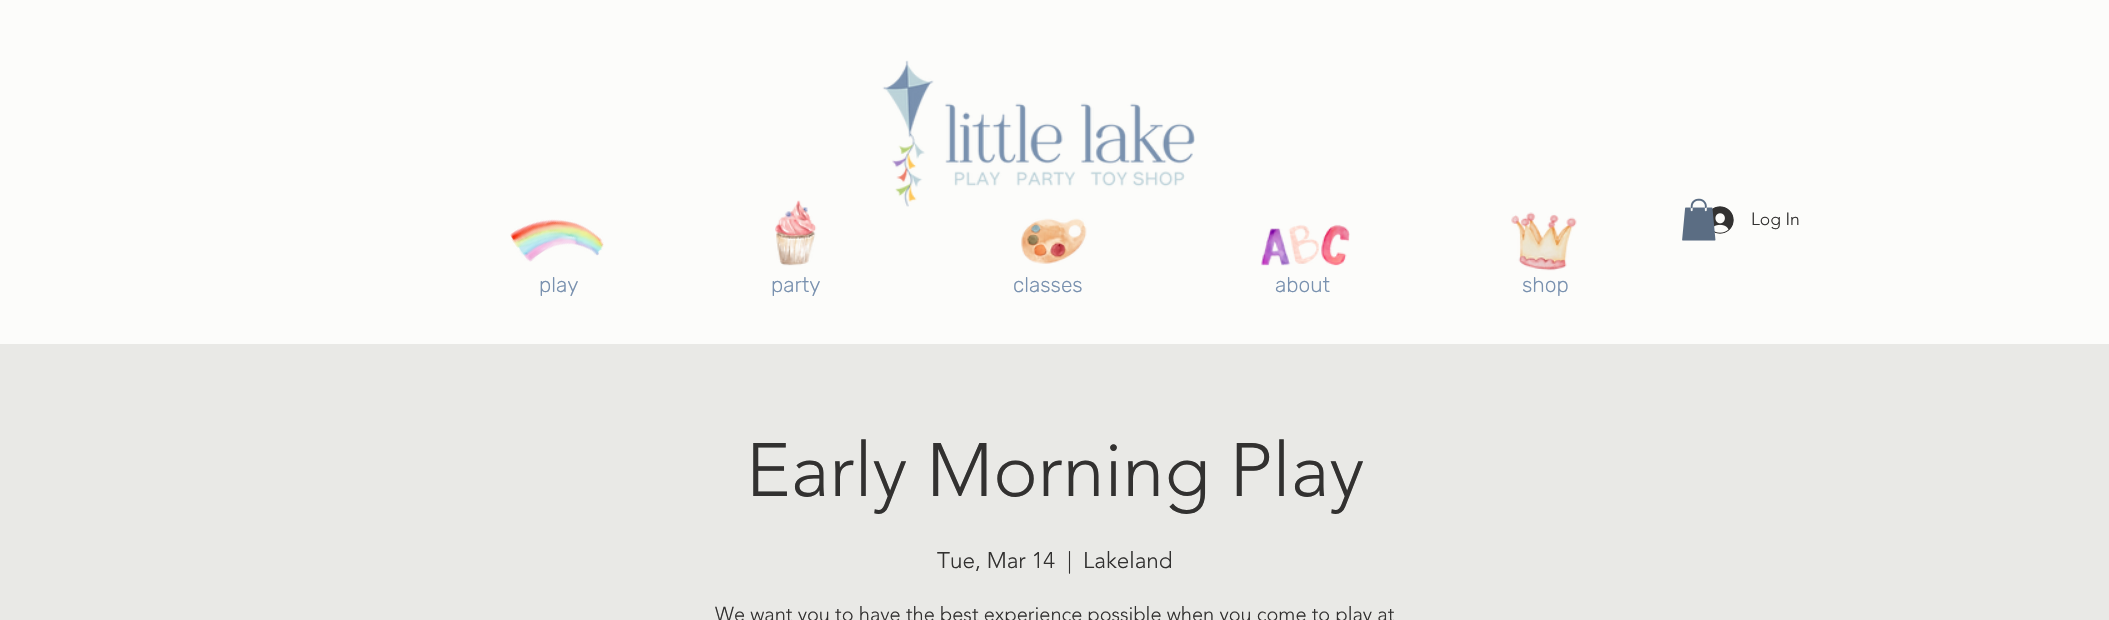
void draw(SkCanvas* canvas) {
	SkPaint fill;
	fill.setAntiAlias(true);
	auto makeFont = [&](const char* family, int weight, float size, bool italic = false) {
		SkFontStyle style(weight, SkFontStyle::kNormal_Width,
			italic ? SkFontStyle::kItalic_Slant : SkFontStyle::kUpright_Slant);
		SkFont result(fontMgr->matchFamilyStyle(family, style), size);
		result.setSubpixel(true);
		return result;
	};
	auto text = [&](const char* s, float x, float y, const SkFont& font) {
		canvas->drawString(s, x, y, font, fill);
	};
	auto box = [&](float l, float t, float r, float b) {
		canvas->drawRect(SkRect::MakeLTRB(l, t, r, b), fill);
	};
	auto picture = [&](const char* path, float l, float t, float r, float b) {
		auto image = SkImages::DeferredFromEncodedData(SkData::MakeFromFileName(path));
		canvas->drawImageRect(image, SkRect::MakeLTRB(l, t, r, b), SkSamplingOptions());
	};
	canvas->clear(0xFFF8F7F2);
	canvas->save();
	canvas->clipPath(SkPathBuilder(SkPathFillType::kEvenOdd).moveTo(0, 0).lineTo(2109, 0).lineTo(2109, 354).lineTo(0, 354).close().moveTo(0, 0).lineTo(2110, 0).lineTo(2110, 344).lineTo(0, 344).close().detach(), true);
	fill.setColor(0xB3000000);
	fill.setMaskFilter(SkMaskFilter::MakeBlur(kNormal_SkBlurStyle, 3));
	canvas->drawRect(SkRect::MakeLTRB(0, 0, 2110, 344), fill);
	fill.setMaskFilter(nullptr);
	canvas->restore();
	fill.setColor(0x99FFFFFF);
	box(0, 0, 2109, 344);
	picture("image0.png", 882, 60, 1195, 207);
	picture("image1.png", 510, 219, 604, 262);
	picture("image2.png", 775, 200, 817, 266);
	picture("image3.png", 1021, 218, 1087, 264);
	picture("image4.png", 1261, 224, 1350, 266);
	picture("image5.png", 1511, 212, 1577, 271);
	picture("image7.png", 1712, 206, 1734, 234);
	picture("image6.png", 1682, 198, 1716, 241);
	fill.setColor(0xFFE9E9E6);
	box(0, 344, 2109, 620);
	auto font1 = makeFont("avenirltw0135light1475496", 300, 17.5f);
	fill.setColor(0xFF323130);
	text("Log In", 1751, 225, font1);
	auto font2 = makeFont("Rubik", 300, 21);
	fill.setColor(0xFF7991AF);
	text("play", 539, 292, font2);
	text("party", 771, 292, font2);
	text("classes", 1013, 292, font2);
	text("about", 1275, 292, font2);
	text("shop", 1522, 292, font2);
	auto font3 = makeFont("avenirltw0135light1475496", 300, 75);
	fill.setColor(0xFF323130);
	text("Early Morning Play", 746, 496, font3);
	auto font4 = makeFont("avenirltw0135light1475496", 300, 22.5f);
	text("Tue, Mar 14", 937, 568, font4);
	text("|", 1067, 568, font4);
	text("Lakeland", 1083, 568, font4);
	auto font5 = makeFont("avenirltw0135light1475496", 300, 20);
	text("We want you to have the best experience possible when you come to play at", 715, 621, font5);
}
